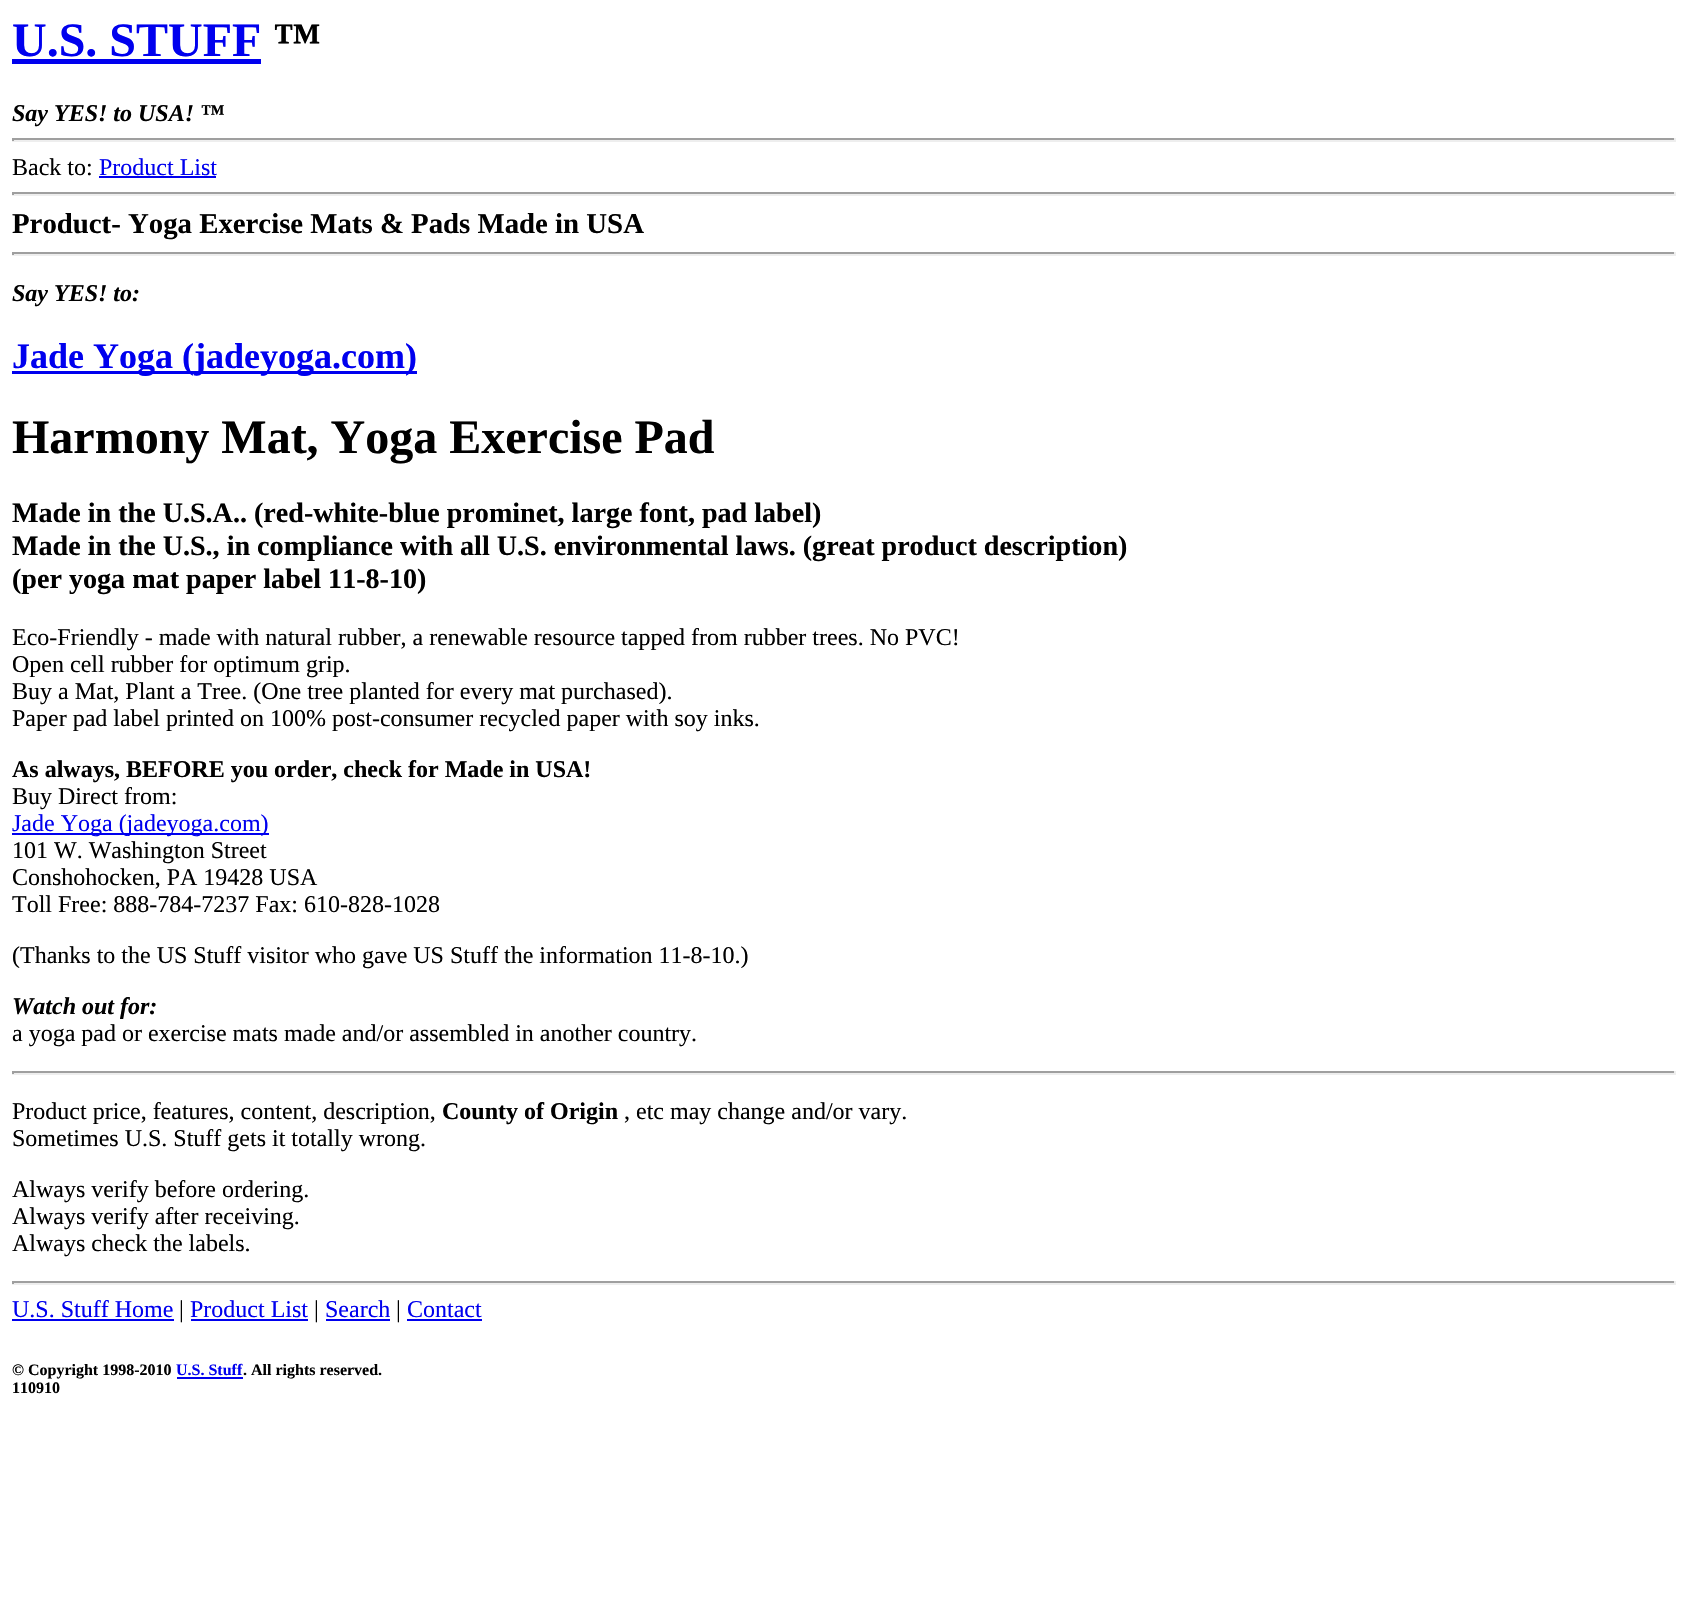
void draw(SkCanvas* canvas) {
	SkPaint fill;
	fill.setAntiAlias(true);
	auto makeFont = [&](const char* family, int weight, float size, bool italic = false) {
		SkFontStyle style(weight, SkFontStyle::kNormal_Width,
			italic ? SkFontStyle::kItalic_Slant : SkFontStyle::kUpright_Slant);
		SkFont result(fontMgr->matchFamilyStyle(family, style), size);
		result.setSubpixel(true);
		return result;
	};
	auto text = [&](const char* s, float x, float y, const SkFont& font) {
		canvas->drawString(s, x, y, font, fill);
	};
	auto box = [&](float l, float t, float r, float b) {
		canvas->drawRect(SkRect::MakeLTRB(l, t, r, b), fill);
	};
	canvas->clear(0xFFFFFFFF);
	fill.setColor(0xFF0000EE);
	box(12, 59, 261, 64);
	fill.setColor(0xFF9F9F9F);
	box(12, 138, 1676, 140);
	fill.setColor(0xFFEEEEEE);
	box(1674, 138, 1676, 141);
	box(12, 140, 1676, 142);
	fill.setColor(0xFF9F9F9F);
	box(12, 138, 14, 141);
	fill.setColor(0xFF0000EE);
	box(99, 176, 216, 178);
	fill.setColor(0xFF9F9F9F);
	box(12, 192, 1676, 194);
	fill.setColor(0xFFEEEEEE);
	box(1674, 192, 1676, 195);
	box(12, 194, 1676, 196);
	fill.setColor(0xFF9F9F9F);
	box(12, 192, 14, 195);
	box(12, 252, 1676, 254);
	fill.setColor(0xFFEEEEEE);
	box(1674, 252, 1676, 255);
	box(12, 254, 1676, 256);
	fill.setColor(0xFF9F9F9F);
	box(12, 252, 14, 255);
	fill.setColor(0xFF0000EE);
	box(12, 371, 417, 374);
	box(12, 833, 269, 835);
	fill.setColor(0xFF9F9F9F);
	box(12, 1071, 1676, 1073);
	fill.setColor(0xFFEEEEEE);
	box(1674, 1071, 1676, 1074);
	box(12, 1073, 1676, 1075);
	fill.setColor(0xFF9F9F9F);
	box(12, 1071, 14, 1074);
	box(12, 1281, 1676, 1283);
	fill.setColor(0xFFEEEEEE);
	box(1674, 1281, 1676, 1284);
	box(12, 1283, 1676, 1285);
	fill.setColor(0xFF9F9F9F);
	box(12, 1281, 14, 1284);
	fill.setColor(0xFF0000EE);
	box(12, 1319, 174, 1321);
	box(191, 1319, 308, 1321);
	box(326, 1319, 390, 1321);
	box(407, 1319, 482, 1321);
	box(177, 1377, 243, 1379);
	auto font1 = makeFont("Liberation Serif", 700, 48);
	text("U.S. STUFF", 12, 56, font1);
	fill.setColor(0xFF000000);
	text("™", 273, 56, font1);
	auto font2 = makeFont("Liberation Serif", 700, 24, true);
	text("Say YES! to USA! ™", 12, 121, font2);
	auto font3 = makeFont("Liberation Serif", 400, 24);
	text("Back to:", 12, 175, font3);
	fill.setColor(0xFF0000EE);
	text("Product List", 99, 175, font3);
	auto font4 = makeFont("Liberation Serif", 700, 28.8f);
	fill.setColor(0xFF000000);
	text("Product- Yoga Exercise Mats & Pads Made in USA", 12, 233, font4);
	text("Say YES! to:", 12, 301, font2);
	auto font5 = makeFont("Liberation Serif", 700, 36);
	fill.setColor(0xFF0000EE);
	text("Jade Yoga (jadeyoga.com)", 12, 368, font5);
	fill.setColor(0xFF000000);
	text("Harmony Mat, Yoga Exercise Pad", 12, 453, font1);
	auto font6 = makeFont("Liberation Serif", 700, 28.1f);
	text("Made in the U.S.A.. (red-white-blue prominet, large font, pad label)", 12, 522, font6);
	text("Made in the U.S., in compliance with all U.S. environmental laws. (great product description)", 12, 555, font6);
	text("(per yoga mat paper label 11-8-10)", 12, 588, font6);
	text("Eco-Friendly - made with natural rubber, a renewable resource tapped from rubber trees. No PVC!", 12, 645, font3);
	text("Open cell rubber for optimum grip.", 12, 672, font3);
	text("Buy a Mat, Plant a Tree. (One tree planted for every mat purchased).", 12, 699, font3);
	text("Paper pad label printed on 100% post-consumer recycled paper with soy inks.", 12, 726, font3);
	auto font7 = makeFont("Liberation Serif", 700, 24);
	text("As always, BEFORE you order, check for Made in USA!", 12, 777, font7);
	text("Buy Direct from:", 12, 804, font3);
	fill.setColor(0xFF0000EE);
	text("Jade Yoga (jadeyoga.com)", 12, 831, font3);
	fill.setColor(0xFF000000);
	text("101 W. Washington Street", 12, 858, font3);
	text("Conshohocken, PA 19428 USA", 12, 885, font3);
	text("Toll Free: 888-784-7237 Fax: 610-828-1028", 12, 912, font3);
	text("(Thanks to the US Stuff visitor who gave US Stuff the information 11-8-10.)", 12, 963, font3);
	text("Watch out for:", 12, 1014, font2);
	text("a yoga pad or exercise mats made and/or assembled in another country.", 12, 1041, font3);
	text("Product price, features, content, description,", 12, 1119, font3);
	text("County of Origin", 442, 1119, font7);
	text(", etc may change and/or vary.", 624, 1119, font3);
	text("Sometimes U.S. Stuff gets it totally wrong.", 12, 1146, font3);
	text("Always verify before ordering.", 12, 1197, font3);
	text("Always verify after receiving.", 12, 1224, font3);
	text("Always check the labels.", 12, 1251, font3);
	fill.setColor(0xFF0000EE);
	text("U.S. Stuff Home", 12, 1317, font3);
	fill.setColor(0xFF000000);
	text("|", 179, 1317, font3);
	fill.setColor(0xFF0000EE);
	text("Product List", 190, 1317, font3);
	fill.setColor(0xFF000000);
	text("|", 314, 1317, font3);
	fill.setColor(0xFF0000EE);
	text("Search", 325, 1317, font3);
	fill.setColor(0xFF000000);
	text("|", 396, 1317, font3);
	fill.setColor(0xFF0000EE);
	text("Contact", 407, 1317, font3);
	auto font8 = makeFont("Liberation Serif", 700, 16);
	fill.setColor(0xFF000000);
	text("© Copyright 1998-2010", 12, 1375, font8);
	fill.setColor(0xFF0000EE);
	text("U.S. Stuff", 176, 1375, font8);
	fill.setColor(0xFF000000);
	text(". All rights reserved.", 243, 1375, font8);
	text("110910", 12, 1393, font8);
}
